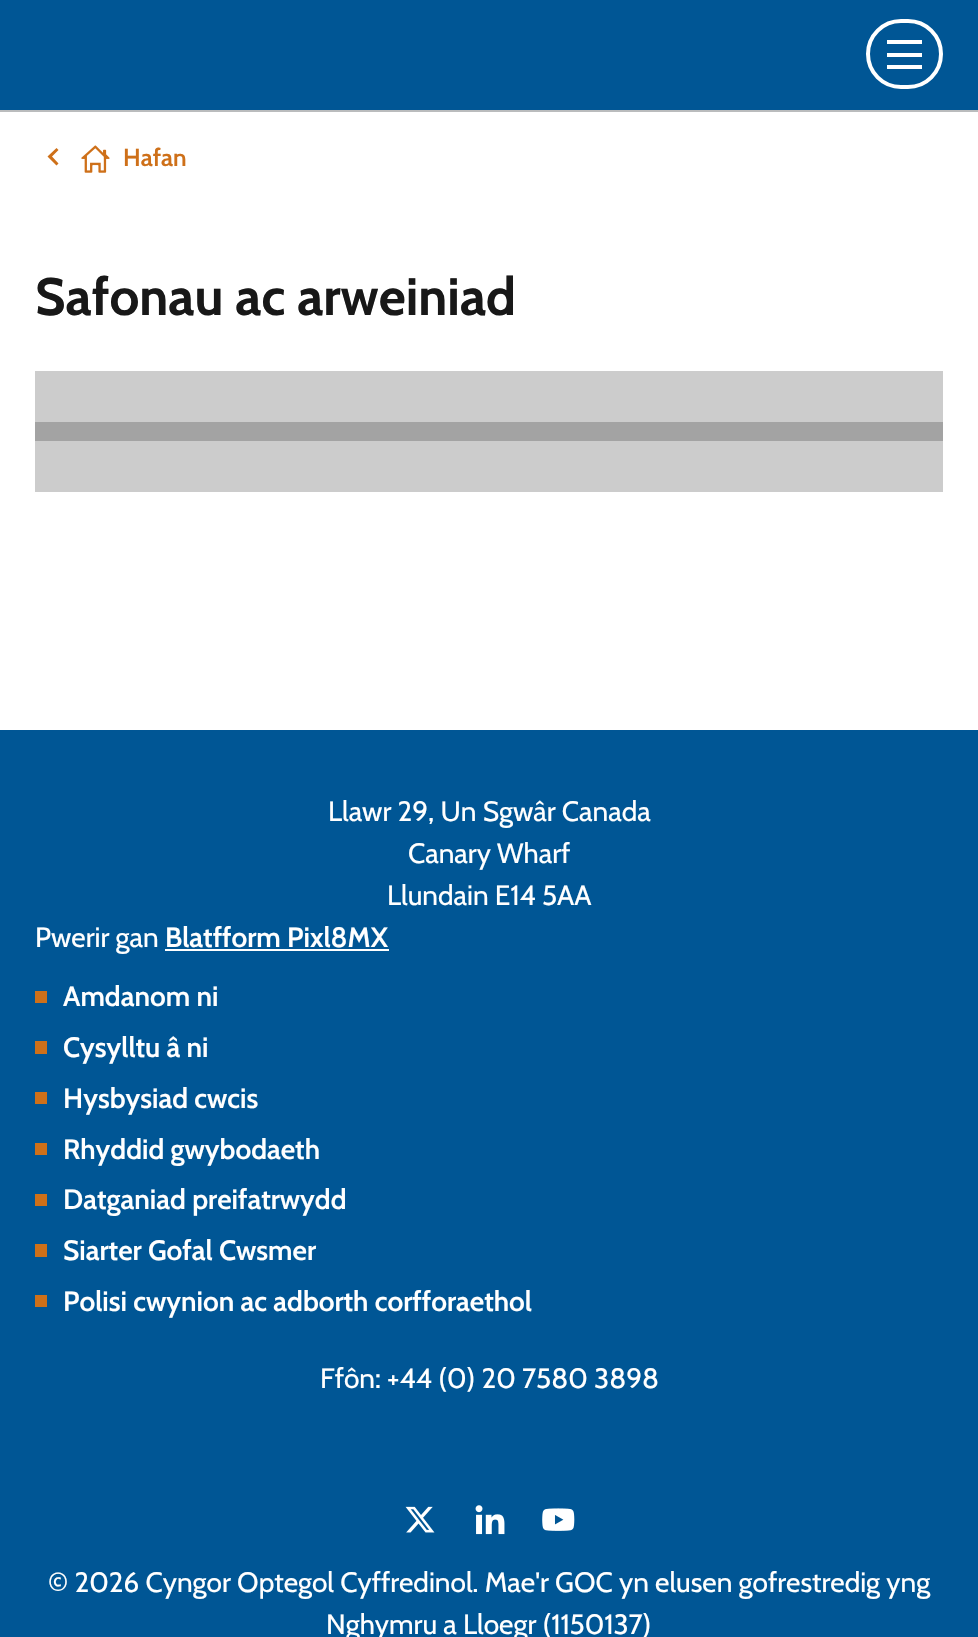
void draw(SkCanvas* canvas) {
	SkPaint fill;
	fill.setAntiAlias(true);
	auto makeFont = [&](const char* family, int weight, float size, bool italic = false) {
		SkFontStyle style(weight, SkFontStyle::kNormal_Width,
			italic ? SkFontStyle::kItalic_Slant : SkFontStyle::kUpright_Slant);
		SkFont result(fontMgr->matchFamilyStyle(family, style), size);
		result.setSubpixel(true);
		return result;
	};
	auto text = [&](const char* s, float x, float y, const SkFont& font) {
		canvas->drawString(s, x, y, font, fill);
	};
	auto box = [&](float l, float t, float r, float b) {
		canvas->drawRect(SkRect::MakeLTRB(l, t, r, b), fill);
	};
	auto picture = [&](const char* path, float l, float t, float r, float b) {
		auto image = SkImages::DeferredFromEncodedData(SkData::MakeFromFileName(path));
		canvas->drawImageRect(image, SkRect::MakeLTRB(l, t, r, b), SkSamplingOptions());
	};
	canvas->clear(0xFFFFFFFF);
	fill.setColor(0xFFCCCCCC);
	box(35, 441, 943, 492);
	fill.setColor(0xFF005695);
	box(0, 0, 978, 110);
	fill.setColor(0xFFBABCBD);
	box(0, 110, 978, 112);
	fill.setStyle(SkPaint::kStroke_Style);
	fill.setStrokeWidth(4);
	fill.setColor(0xFFFFFFFF);
	canvas->drawRoundRect(SkRect::MakeLTRB(868, 21, 941, 87), 33, 33, fill);
	fill.setStyle(SkPaint::kFill_Style);
	box(887, 53, 922, 57);
	box(887, 40, 922, 44);
	box(887, 65, 922, 69);
	fill.setColor(0xFFCE7019);
	canvas->drawPath(SkPathBuilder().moveTo(56.5f, 165.5f).lineTo(47.5f, 156.5f).lineTo(56.5f, 148).lineTo(58.5f, 150).lineTo(52, 156.5f).lineTo(58.5f, 163.5f).close().detach(), fill);
	picture("image0.png", 81, 145, 110, 173);
	fill.setColor(0xFFCCCCCC);
	box(35, 371, 943, 422);
	fill.setColor(0xFFA3A3A3);
	box(35, 422, 943, 441);
	fill.setColor(0xFF005695);
	box(0, 730, 978, 1637);
	fill.setColor(0xFFFFFFFF);
	box(165, 949, 389, 951);
	fill.setColor(0xFFCE7019);
	box(35, 991, 47, 1003);
	box(35, 1041, 47, 1054);
	box(35, 1092, 47, 1104);
	box(35, 1143, 47, 1155);
	box(35, 1194, 47, 1206);
	box(35, 1244, 47, 1257);
	box(35, 1295, 47, 1307);
	picture("image1.png", 405, 1506, 435, 1533);
	picture("image2.png", 475, 1505, 505, 1535);
	picture("image3.png", 542, 1508, 575, 1531);
	auto font1 = makeFont("Cabin", 600, 24.5f);
	text("Hafan", 123, 166, font1);
	auto font2 = makeFont("Cabin", 700, 52.5f);
	fill.setColor(0xFF181818);
	text("Safonau ac arweiniad", 35, 315, font2);
	auto font3 = makeFont("Cabin", 400, 28);
	fill.setColor(0xFFFFFFFF);
	text("Llawr 29, Un Sgwâr Canada", 328, 821, font3);
	text("Canary Wharf", 408, 863, font3);
	text("Llundain E14 5AA", 387, 905, font3);
	text("Pwerir gan", 35, 947, font3);
	auto font4 = makeFont("Cabin", 600, 28);
	text("Blatfform Pixl8MX", 165, 947, font4);
	text("Amdanom ni", 63, 1006, font4);
	text("Cysylltu â ni", 63, 1057, font4);
	text("Hysbysiad cwcis", 63, 1108, font4);
	text("Rhyddid gwybodaeth", 63, 1159, font4);
	text("Datganiad preifatrwydd", 63, 1209, font4);
	text("Siarter Gofal Cwsmer", 63, 1260, font4);
	text("Polisi cwynion ac adborth corfforaethol", 63, 1311, font4);
	text("Ffôn: +44 (0) 20 7580 3898", 320, 1388, font3);
	text("© 2026 Cyngor Optegol Cyffredinol. Mae'r GOC yn elusen gofrestredig yng", 48, 1592, font3);
	text("Nghymru a Lloegr (1150137)", 326, 1634, font3);
}
